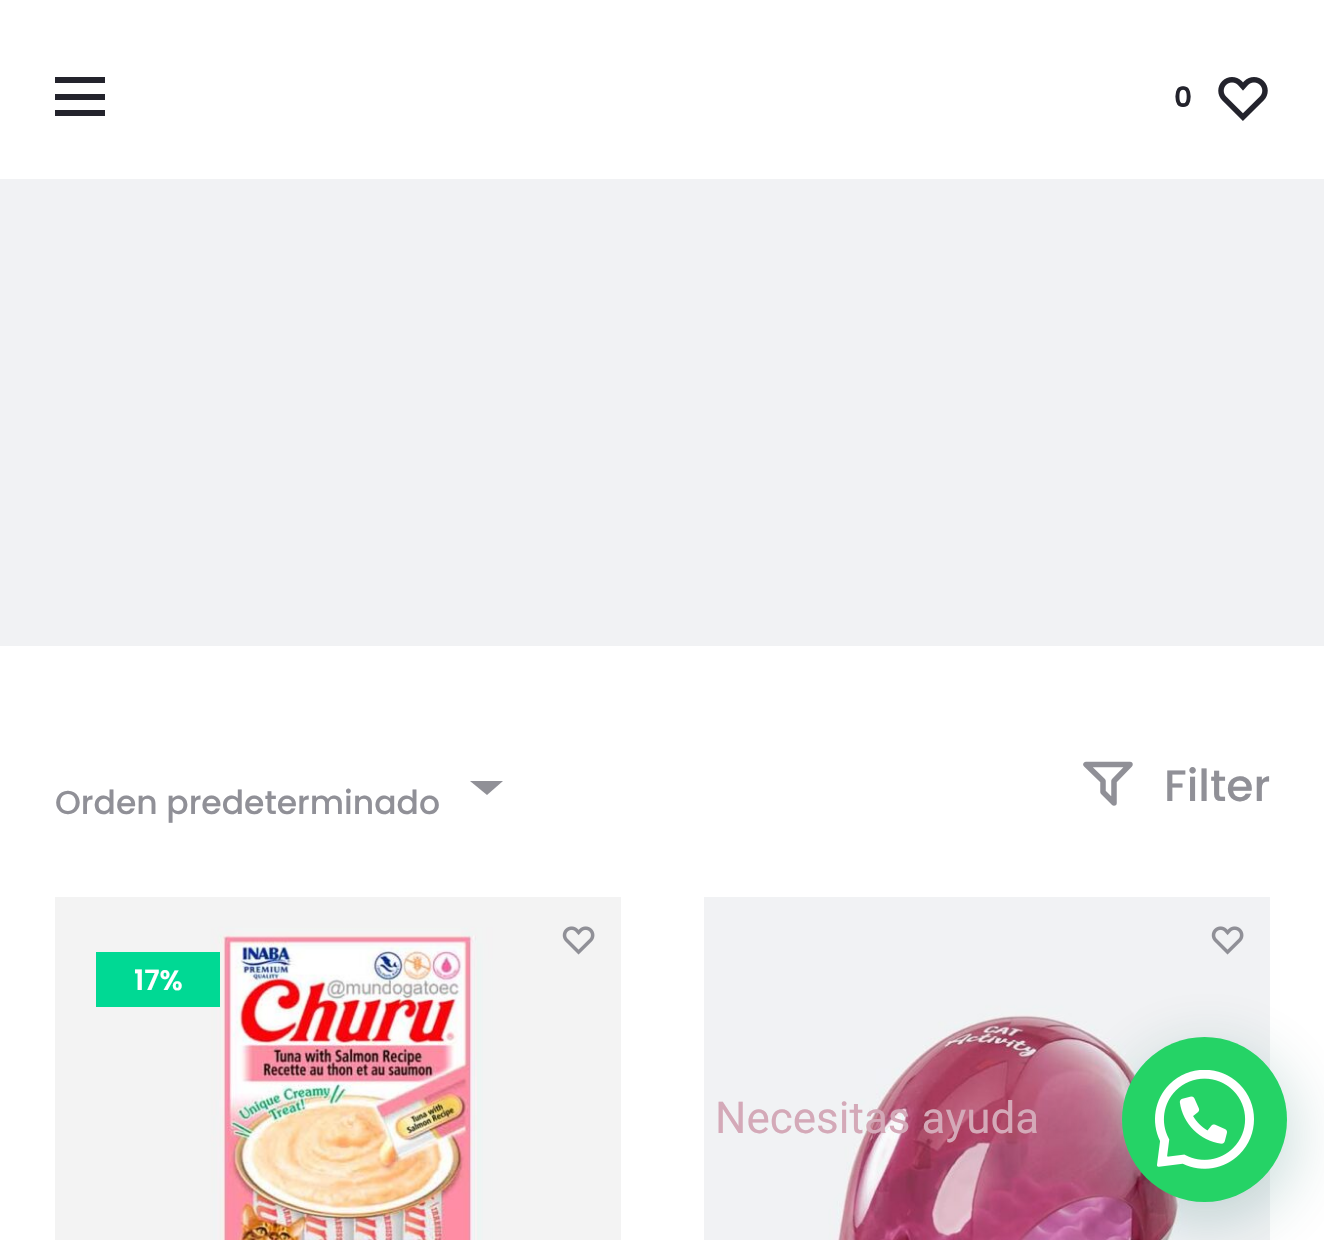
void draw(SkCanvas* canvas) {
	SkPaint fill;
	fill.setAntiAlias(true);
	auto makeFont = [&](const char* family, int weight, float size, bool italic = false) {
		SkFontStyle style(weight, SkFontStyle::kNormal_Width,
			italic ? SkFontStyle::kItalic_Slant : SkFontStyle::kUpright_Slant);
		SkFont result(fontMgr->matchFamilyStyle(family, style), size);
		result.setSubpixel(true);
		return result;
	};
	auto text = [&](const char* s, float x, float y, const SkFont& font) {
		canvas->drawString(s, x, y, font, fill);
	};
	auto box = [&](float l, float t, float r, float b) {
		canvas->drawRect(SkRect::MakeLTRB(l, t, r, b), fill);
	};
	auto picture = [&](const char* path, float l, float t, float r, float b) {
		auto image = SkImages::DeferredFromEncodedData(SkData::MakeFromFileName(path));
		canvas->drawImageRect(image, SkRect::MakeLTRB(l, t, r, b), SkSamplingOptions());
	};
	canvas->clear(0xFFFFFFFF);
	fill.setColor(0xFF23232C);
	box(55, 94, 105, 100);
	box(55, 77, 105, 83);
	box(55, 110, 105, 116);
	picture("image0.png", 1218, 77, 1268, 121);
	fill.setColor(0xFFF1F2F4);
	box(0, 179, 1324, 646);
	fill.setStyle(SkPaint::kStroke_Style);
	fill.setStrokeWidth(5.5f);
	fill.setStrokeJoin(SkPaint::kRound_Join);
	fill.setColor(0xFF909097);
	canvas->drawPath(SkPathBuilder().moveTo(1114, 781).lineTo(1114, 803).lineTo(1103, 792).lineTo(1103, 781).lineTo(1086, 764.5f).lineTo(1130, 764.5f).close().detach(), fill);
	fill.setStyle(SkPaint::kFill_Style);
	canvas->drawPath(SkPathBuilder().moveTo(470, 781).lineTo(503, 781).lineTo(487, 795).close().detach(), fill);
	picture("image2.png", 55, 897, 621, 1240);
	picture("image1.png", 562, 926, 595, 955);
	fill.setColor(0xFF00D994);
	box(96, 952, 220, 1007);
	picture("image3.png", 704, 897, 1270, 1240);
	picture("image4.png", 1211, 926, 1244, 955);
	fill.setColor(0x3D075E54);
	fill.setMaskFilter(SkMaskFilter::MakeBlur(kNormal_SkBlurStyle, 33));
	canvas->drawRoundRect(SkRect::MakeLTRB(1125, 1053, 1290, 1218), 82.5f, 82.5f, fill);
	fill.setMaskFilter(nullptr);
	fill.setColor(0xFF25D366);
	canvas->drawCircle(1204.5f, 1119.5f, 82.5f, fill);
	picture("image5.png", 1155, 1070, 1254, 1169);
	auto font1 = makeFont("Poppins", 600, 28);
	fill.setColor(0xFF23232C);
	text("0", 1174, 107, font1);
	auto font2 = makeFont("Poppins", 500, 44);
	fill.setColor(0xFF909097);
	text("Filter", 1164, 801, font2);
	auto font3 = makeFont("Poppins", 500, 33);
	text("Orden predeterminado", 55, 814, font3);
	fill.setColor(0xFFFFFFFF);
	text("17%", 134, 990, font1);
	auto font4 = makeFont("Roboto", 400, 44);
	fill.setColor(0xFFD4A9B8);
	text("Necesitas ayuda", 715, 1133, font4);
}
